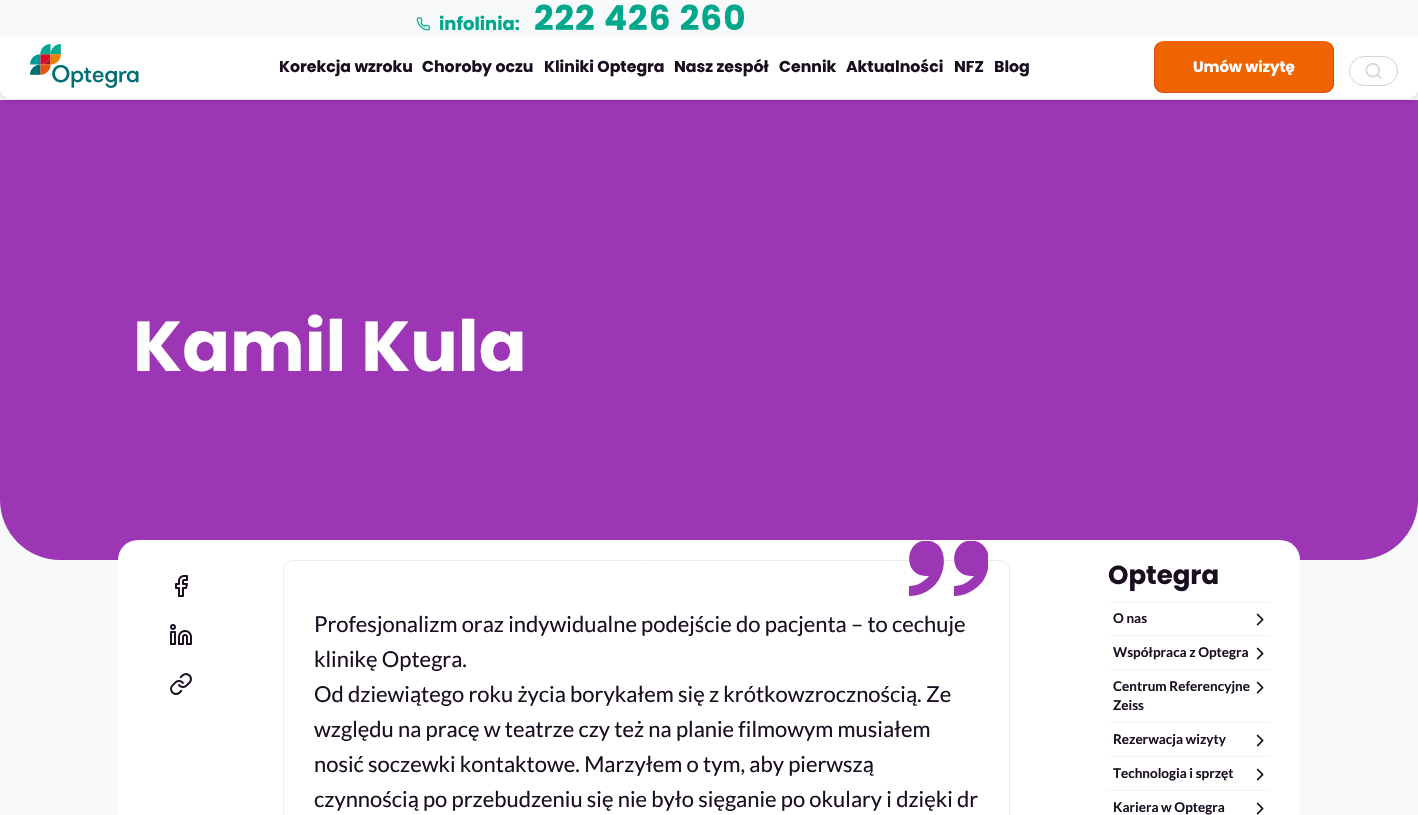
void draw(SkCanvas* canvas) {
	SkPaint fill;
	fill.setAntiAlias(true);
	auto makeFont = [&](const char* family, int weight, float size, bool italic = false) {
		SkFontStyle style(weight, SkFontStyle::kNormal_Width,
			italic ? SkFontStyle::kItalic_Slant : SkFontStyle::kUpright_Slant);
		SkFont result(fontMgr->matchFamilyStyle(family, style), size);
		result.setSubpixel(true);
		return result;
	};
	auto text = [&](const char* s, float x, float y, const SkFont& font) {
		canvas->drawString(s, x, y, font, fill);
	};
	auto spacedText = [&](const char* s, float x, float y, const SkFont& font, const SkPaint& ink, float letter, float word) {
		std::vector<SkGlyphID> glyphs(font.countText(s, strlen(s), SkTextEncoding::kUTF8));
		std::vector<float> xs(glyphs.size());
		font.textToGlyphs(s, strlen(s), SkTextEncoding::kUTF8, glyphs);
		font.getXPos(glyphs, xs, x);
		float extra = 0;
		for (size_t i = 0; i < glyphs.size(); i++) {
			xs[i] += extra;
			extra += letter + word * (glyphs[i] == font.unicharToGlyph(' '));
		}
		canvas->drawTextBlob(SkTextBlob::MakeFromPosHGlyphs(glyphs, xs, y, font), 0, 0, ink);
	};
	auto box = [&](float l, float t, float r, float b) {
		canvas->drawRect(SkRect::MakeLTRB(l, t, r, b), fill);
	};
	auto roundBox = [&](float l, float t, float r, float b, float radius) {
		canvas->drawRoundRect(SkRect::MakeLTRB(l, t, r, b), radius, radius, fill);
	};
	auto picture = [&](const char* path, float l, float t, float r, float b) {
		auto image = SkImages::DeferredFromEncodedData(SkData::MakeFromFileName(path));
		canvas->drawImageRect(image, SkRect::MakeLTRB(l, t, r, b), SkSamplingOptions());
	};
	canvas->clear(0xFFF8F9FA);
	fill.setColor(0xFF9C36B5);
	canvas->drawPath(SkPathBuilder().moveTo(0, 100).lineTo(1418, 100).lineTo(1418, 500).cubicTo(1418, 533, 1391, 560, 1358, 560).lineTo(60, 560).cubicTo(27, 560, 0, 533, 0, 500).close().detach(), fill);
	fill.setColor(0x29000000);
	fill.setMaskFilter(SkMaskFilter::MakeBlur(kNormal_SkBlurStyle, 3));
	canvas->drawRoundRect(SkRect::MakeLTRB(0, 1, 1418, 100), 10, 10, fill);
	fill.setMaskFilter(nullptr);
	fill.setColor(0xFFFFFFFF);
	canvas->drawPath(SkPathBuilder().moveTo(0, 0).lineTo(1418, 0).lineTo(1418, 89).cubicTo(1418, 94, 1414, 98, 1408, 98).lineTo(10, 98).cubicTo(4, 98, 0, 94, 0, 89).close().detach(), fill);
	box(5, 98, 1413, 99);
	fill.setColor(0xFFF8F9FA);
	box(0, 0, 1418, 36);
	picture("image0.png", 416, 17, 430, 31);
	picture("image1.png", 30, 44, 139, 88);
	fill.setColor(0xFFEF6300);
	roundBox(1154, 41, 1334, 93, 10);
	fill.setColor(0xFFD9480F);
	canvas->drawPath(SkPathBuilder(SkPathFillType::kEvenOdd).moveTo(1164, 41).lineTo(1324, 41).cubicTo(1330, 41, 1334, 45, 1334, 51).lineTo(1334, 83).cubicTo(1334, 89, 1330, 93, 1324, 93).lineTo(1164, 93).cubicTo(1158, 93, 1154, 89, 1154, 83).lineTo(1154, 51).cubicTo(1154, 45, 1158, 41, 1164, 41).close().moveTo(1164, 41).lineTo(1324, 41).cubicTo(1329, 41, 1333, 45, 1333, 51).lineTo(1333, 83).cubicTo(1333, 88, 1329, 92, 1324, 92).lineTo(1164, 92).cubicTo(1159, 92, 1155, 88, 1155, 83).lineTo(1155, 51).cubicTo(1155, 45, 1159, 41, 1164, 41).close().detach(), fill);
	fill.setStyle(SkPaint::kStroke_Style);
	fill.setStrokeWidth(1);
	fill.setColor(0xFFCED4DA);
	canvas->drawRoundRect(SkRect::MakeLTRB(1349.5f, 56.5f, 1397.5f, 85.5f), 14.5f, 14.5f, fill);
	picture("image2.png", 1365, 63, 1382, 79);
	fill.setStyle(SkPaint::kFill_Style);
	fill.setColor(0xFFFFFFFF);
	roundBox(118, 540, 1300, 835, 20);
	picture("image3.png", 175, 575, 188, 597);
	picture("image4.png", 170, 624, 192, 645);
	picture("image5.png", 170, 673, 192, 695);
	fill.setStyle(SkPaint::kStroke_Style);
	fill.setColor(0xFFE9ECEF);
	canvas->drawRoundRect(SkRect::MakeLTRB(283.5f, 560.5f, 1009.5f, 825.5f), 9.5f, 9.5f, fill);
	canvas->save();
	canvas->clipRect(SkRect::MakeLTRB(909, 541, 988, 596));
	fill.setStyle(SkPaint::kFill_Style);
	fill.setColor(0xFF9C36B5);
	canvas->drawPath(SkPathBuilder().moveTo(971, 576).cubicTo(946, 576, 950, 536, 975, 541).cubicTo(993, 545, 991, 569, 983, 581).cubicTo(976, 590, 965, 596, 954, 596).lineTo(954, 586).cubicTo(962, 586, 969, 582, 974, 576).close().moveTo(926, 576).cubicTo(901, 576, 905, 536, 930, 541).cubicTo(948, 545, 946, 569, 938, 581).cubicTo(932, 590, 921, 596, 909, 596).lineTo(909, 586).cubicTo(917, 586, 924, 582, 929, 576).close().detach(), fill);
	canvas->restore();
	fill.setColor(0xFFF1F3F5);
	box(1108, 602, 1270, 603);
	box(1108, 635, 1270, 636);
	picture("image6.png", 1256, 613, 1264, 626);
	box(1108, 669, 1270, 670);
	picture("image6.png", 1256, 647, 1264, 660);
	box(1108, 722, 1270, 723);
	picture("image6.png", 1256, 681, 1264, 694);
	box(1108, 756, 1270, 757);
	picture("image6.png", 1256, 734, 1264, 747);
	box(1108, 790, 1270, 791);
	picture("image6.png", 1256, 768, 1264, 781);
	picture("image6.png", 1256, 802, 1264, 815);
	auto font1 = makeFont("Poppins", 700, 18);
	fill.setColor(0xFF00A88B);
	text("infolinia:", 439, 30, font1);
	auto font2 = makeFont("Poppins", 700, 34.25f);
	spacedText("222 426 260", 534, 30, font2, fill, 1, 0);
	auto font3 = makeFont("Poppins", 700, 15.75f);
	fill.setColor(0xFF1A0F1F);
	text("Korekcja wzroku", 279, 72, font3);
	text("Choroby oczu", 422, 72, font3);
	text("Kliniki Optegra", 544, 72, font3);
	text("Nasz zespół", 674, 72, font3);
	text("Cennik", 779, 72, font3);
	text("Aktualności", 846, 72, font3);
	text("NFZ", 954, 72, font3);
	text("Blog", 994, 72, font3);
	auto font4 = makeFont("Poppins", 700, 15);
	fill.setColor(0xFFFFFFFF);
	text("Umów wizytę", 1193, 72, font4);
	auto font5 = makeFont("Poppins", 700, 70.5f);
	text("Kamil Kula", 133, 371, font5);
	auto font6 = makeFont("Lato", 400, 21.95f);
	fill.setColor(0xFF1A0F1F);
	text("Profesjonalizm oraz indywidualne podejście do pacjenta – to cechuje", 314, 632, font6);
	text("klinikę Optegra.", 314, 667, font6);
	text("Od dziewiątego roku życia borykałem się z krótkowzrocznością. Ze", 314, 702, font6);
	text("względu na pracę w teatrze czy też na planie filmowym musiałem", 314, 737, font6);
	text("nosić soczewki kontaktowe. Marzyłem o tym, aby pierwszą", 314, 772, font6);
	text("czynnością po przebudzeniu się nie było sięganie po okulary i dzięki dr", 314, 807, font6);
	auto font7 = makeFont("Poppins", 700, 26);
	text("Optegra", 1108, 584, font7);
	auto font8 = makeFont("Lato", 700, 13.5f);
	text("O nas", 1113, 623, font8);
	text("Współpraca z Optegra", 1113, 657, font8);
	text("Centrum Referencyjne", 1113, 691, font8);
	text("Zeiss", 1113, 710, font8);
	text("Rezerwacja wizyty", 1113, 744, font8);
	text("Technologia i sprzęt", 1113, 778, font8);
	text("Kariera w Optegra", 1113, 812, font8);
}
